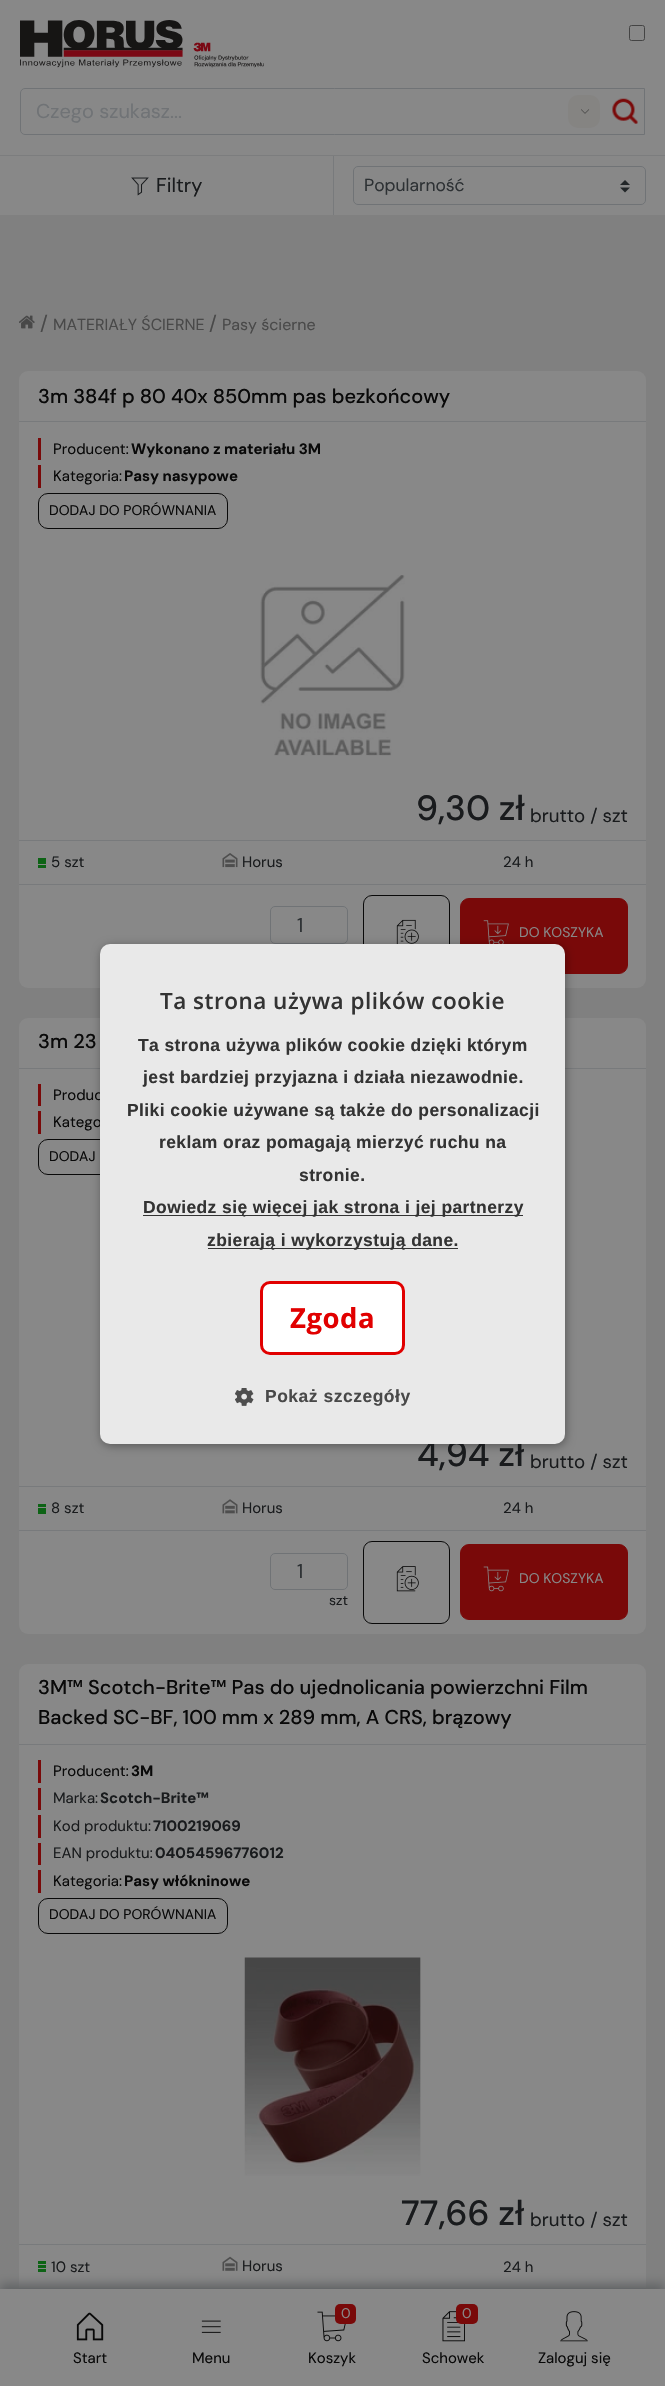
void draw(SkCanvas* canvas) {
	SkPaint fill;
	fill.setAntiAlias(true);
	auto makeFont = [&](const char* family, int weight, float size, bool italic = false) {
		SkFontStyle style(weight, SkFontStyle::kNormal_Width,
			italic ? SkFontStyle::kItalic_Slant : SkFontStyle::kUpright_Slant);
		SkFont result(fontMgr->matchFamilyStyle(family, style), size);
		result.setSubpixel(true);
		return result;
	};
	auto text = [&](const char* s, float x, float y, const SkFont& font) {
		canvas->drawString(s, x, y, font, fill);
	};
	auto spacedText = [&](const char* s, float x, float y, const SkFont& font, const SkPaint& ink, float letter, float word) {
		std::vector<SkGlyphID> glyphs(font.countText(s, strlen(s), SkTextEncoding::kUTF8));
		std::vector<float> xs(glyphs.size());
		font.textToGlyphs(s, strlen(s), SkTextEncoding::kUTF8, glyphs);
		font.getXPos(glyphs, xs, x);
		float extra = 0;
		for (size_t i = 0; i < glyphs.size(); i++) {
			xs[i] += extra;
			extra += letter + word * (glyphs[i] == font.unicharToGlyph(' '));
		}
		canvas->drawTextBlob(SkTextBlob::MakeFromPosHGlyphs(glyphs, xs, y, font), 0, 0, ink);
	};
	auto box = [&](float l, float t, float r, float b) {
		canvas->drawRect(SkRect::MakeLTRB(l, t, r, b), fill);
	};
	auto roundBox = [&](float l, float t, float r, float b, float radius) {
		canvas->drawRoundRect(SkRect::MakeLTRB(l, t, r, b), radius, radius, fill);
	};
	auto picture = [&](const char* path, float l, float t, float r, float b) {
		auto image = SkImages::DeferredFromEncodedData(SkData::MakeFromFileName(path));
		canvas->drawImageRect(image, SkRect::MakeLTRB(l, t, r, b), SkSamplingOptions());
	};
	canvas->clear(0xFF808080);
	fill.setColor(0xFF888888);
	box(0, 0, 665, 155);
	picture("image0.png", 20, 20, 264, 68);
	fill.setStyle(SkPaint::kStroke_Style);
	fill.setStrokeWidth(1);
	fill.setColor(0xFF444444);
	canvas->drawRoundRect(SkRect::MakeLTRB(629.5f, 25.5f, 644.5f, 40.5f), 2, 2, fill);
	fill.setColor(0xFF707376);
	canvas->drawPath(SkPathBuilder().moveTo(25, 88.5f).lineTo(644.5f, 88.5f).lineTo(644.5f, 134.5f).lineTo(25, 134.5f).cubicTo(22.5f, 134.5f, 20.5f, 132.5f, 20.5f, 130).lineTo(20.5f, 93).cubicTo(20.5f, 90.5f, 22.5f, 88.5f, 25, 88.5f).close().detach(), fill);
	fill.setStyle(SkPaint::kFill_Style);
	fill.setColor(0xFF858482);
	roundBox(568, 95, 600, 128, 10);
	picture("image1.png", 581, 109, 590, 114);
	picture("image2.png", 612, 98, 638, 124);
	fill.setColor(0xFF7C7D7E);
	box(0, 155, 665, 156);
	fill.setColor(0xFF888888);
	box(0, 156, 665, 215);
	picture("image3.png", 131, 177, 149, 196);
	fill.setColor(0xFF787A7C);
	box(333, 156, 334, 215);
	picture("image4.png", 620, 180, 630, 193);
	fill.setStyle(SkPaint::kStroke_Style);
	fill.setColor(0xFF707376);
	canvas->drawRoundRect(SkRect::MakeLTRB(353.5f, 166.5f, 645.5f, 204.5f), 4.5f, 4.5f, fill);
	picture("image5.png", 19, 315, 35, 329);
	fill.setStyle(SkPaint::kFill_Style);
	fill.setColor(0xFF888888);
	roundBox(19, 371, 646, 988, 9);
	fill.setColor(0xFF787A7C);
	box(19, 421, 646, 422);
	fill.setColor(0xFF790909);
	box(38, 438, 41, 460);
	box(38, 465, 41, 488);
	fill.setStyle(SkPaint::kStroke_Style);
	fill.setColor(0xFF090909);
	canvas->drawRoundRect(SkRect::MakeLTRB(38.5f, 493.5f, 227.5f, 528.5f), 9.5f, 9.5f, fill);
	picture("image6.png", 260, 575, 405, 756);
	fill.setStyle(SkPaint::kFill_Style);
	fill.setColor(0xFF787A7C);
	box(19, 840, 646, 841);
	box(19, 884, 646, 885);
	fill.setColor(0xFF0D6315);
	box(38, 858, 46, 864);
	box(38, 865, 46, 868);
	picture("image7.png", 222, 853, 238, 868);
	fill.setStyle(SkPaint::kStroke_Style);
	fill.setColor(0xFF707376);
	canvas->drawRoundRect(SkRect::MakeLTRB(270.5f, 906.5f, 347.5f, 943.5f), 4.5f, 4.5f, fill);
	fill.setColor(0xFF090909);
	canvas->drawRoundRect(SkRect::MakeLTRB(363.5f, 895.5f, 449.5f, 977.5f), 8.5f, 8.5f, fill);
	picture("image8.png", 396, 919, 419, 944);
	fill.setStyle(SkPaint::kFill_Style);
	fill.setColor(0xFF790909);
	canvas->drawRoundRect(SkRect::MakeLTRB(460.5f, 898.5f, 627.5f, 973.5f), 8.5f, 8.5f, fill);
	fill.setStyle(SkPaint::kStroke_Style);
	canvas->drawRoundRect(SkRect::MakeLTRB(460.5f, 898.5f, 627.5f, 973.5f), 8.5f, 8.5f, fill);
	picture("image9.png", 483, 920, 509, 944);
	fill.setStyle(SkPaint::kFill_Style);
	fill.setColor(0xFF888888);
	roundBox(19, 1018, 646, 1634, 9);
	fill.setColor(0xFF787A7C);
	box(19, 1068, 646, 1069);
	fill.setColor(0xFF790909);
	box(38, 1084, 41, 1106);
	box(38, 1111, 41, 1134);
	fill.setStyle(SkPaint::kStroke_Style);
	fill.setColor(0xFF090909);
	canvas->drawRoundRect(SkRect::MakeLTRB(38.5f, 1139.5f, 227.5f, 1174.5f), 9.5f, 9.5f, fill);
	fill.setStyle(SkPaint::kFill_Style);
	fill.setColor(0xFF787A7C);
	box(19, 1486, 646, 1487);
	box(19, 1530, 646, 1531);
	fill.setColor(0xFF0D6315);
	box(38, 1504, 46, 1507);
	box(38, 1508, 46, 1514);
	picture("image10.png", 222, 1499, 238, 1514);
	fill.setStyle(SkPaint::kStroke_Style);
	fill.setColor(0xFF707376);
	canvas->drawRoundRect(SkRect::MakeLTRB(270.5f, 1553.5f, 347.5f, 1589.5f), 4.5f, 4.5f, fill);
	fill.setColor(0xFF090909);
	canvas->drawRoundRect(SkRect::MakeLTRB(363.5f, 1541.5f, 449.5f, 1623.5f), 8.5f, 8.5f, fill);
	picture("image11.png", 396, 1566, 419, 1592);
	fill.setStyle(SkPaint::kFill_Style);
	fill.setColor(0xFF790909);
	canvas->drawRoundRect(SkRect::MakeLTRB(460.5f, 1544.5f, 627.5f, 1619.5f), 8.5f, 8.5f, fill);
	fill.setStyle(SkPaint::kStroke_Style);
	canvas->drawRoundRect(SkRect::MakeLTRB(460.5f, 1544.5f, 627.5f, 1619.5f), 8.5f, 8.5f, fill);
	picture("image12.png", 483, 1566, 509, 1592);
	fill.setStyle(SkPaint::kFill_Style);
	fill.setColor(0xFF888888);
	roundBox(19, 1664, 646, 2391, 9);
	fill.setColor(0xFF787A7C);
	box(19, 1744, 646, 1745);
	fill.setColor(0xFF790909);
	box(38, 1760, 41, 1783);
	box(38, 1788, 41, 1810);
	box(38, 1815, 41, 1838);
	box(38, 1843, 41, 1865);
	box(38, 1870, 41, 1893);
	fill.setStyle(SkPaint::kStroke_Style);
	fill.setColor(0xFF090909);
	canvas->drawRoundRect(SkRect::MakeLTRB(38.5f, 1898.5f, 227.5f, 1933.5f), 9.5f, 9.5f, fill);
	picture("image13.png", 244, 1957, 421, 2176);
	fill.setStyle(SkPaint::kFill_Style);
	fill.setColor(0xFF787A7C);
	box(19, 2244, 646, 2245);
	box(19, 2288, 646, 2289);
	fill.setColor(0xFF0D6315);
	box(38, 2261, 46, 2264);
	box(38, 2265, 46, 2268);
	box(38, 2269, 46, 2272);
	picture("image14.png", 222, 2256, 238, 2271);
	fill.setColor(0xFF606264);
	fill.setMaskFilter(SkMaskFilter::MakeBlur(kNormal_SkBlurStyle, 5));
	canvas->drawRect(SkRect::MakeLTRB(0, 2284, 665, 2381), fill);
	fill.setMaskFilter(nullptr);
	fill.setColor(0xFF888888);
	box(0, 2289, 665, 2386);
	picture("image15.png", 76, 2312, 104, 2341);
	picture("image16.png", 201, 2320, 221, 2333);
	picture("image17.png", 317, 2311, 346, 2342);
	fill.setColor(0xFF790909);
	roundBox(335, 2304, 356, 2324, 5);
	picture("image18.png", 442, 2311, 465, 2342);
	roundBox(456, 2304, 478, 2324, 5);
	picture("image19.png", 560, 2311, 588, 2342);
	fill.setColor(0x59000000);
	fill.setMaskFilter(SkMaskFilter::MakeBlur(kNormal_SkBlurStyle, 5));
	canvas->drawRoundRect(SkRect::MakeLTRB(101, 946, 566, 1446), 10, 10, fill);
	fill.setMaskFilter(nullptr);
	auto font1 = makeFont("DM Sans", 400, 20);
	fill.setColor(0xFF707376);
	text("Czego szukasz...", 36, 118, font1);
	fill.setColor(0xFF191B1D);
	text("Filtry", 156, 192, font1);
	auto font2 = makeFont("DM Sans", 400, 17.5f);
	fill.setColor(0xFF2D3134);
	text("Popularność", 364, 191, font2);
	fill.setColor(0xFF494949);
	text("/", 40, 330, font1);
	auto font3 = makeFont("DM Sans", 400, 16);
	text("MATERIAŁY ŚCIERNE", 53, 330, font3);
	text("/", 209, 330, font1);
	text("Pasy ścierne", 222, 330, font3);
	auto font4 = makeFont("DM Sans", 500, 20);
	fill.setColor(0xFF090909);
	text("3m 384f p 80 40x 850mm pas bezkońcowy", 38, 403, font4);
	auto font5 = makeFont("DM Sans", 400, 15);
	text("Producent:", 53, 454, font5);
	auto font6 = makeFont("DM Sans", 700, 15);
	text("Wykonano z materiału 3M", 131, 454, font6);
	text("Kategoria:", 53, 481, font5);
	text("Pasy nasypowe", 124, 481, font6);
	auto font7 = makeFont("DM Sans", 400, 14);
	text("DODAJ DO PORÓWNANIA", 49, 515, font7);
	auto font8 = makeFont("DM Sans", 500, 35);
	fill.setColor(0xFF191B1D);
	text("9,30 zł", 416, 820, font8);
	auto font9 = makeFont("DM Sans", 400, 18.75f);
	text("brutto / szt", 530, 822, font9);
	text("5 szt", 51, 867, font5);
	text("Horus", 242, 867, font5);
	text("24 h", 503, 867, font5);
	fill.setColor(0xFF2D3134);
	text("1", 297, 932, font1);
	fill.setColor(0xFF888888);
	text("DO KOSZYKA", 519, 937, font7);
	fill.setColor(0xFF090909);
	text("3m 23", 38, 1048, font4);
	text("Produc", 53, 1100, font5);
	text("Katego", 53, 1127, font5);
	text("DODAJ", 49, 1161, font7);
	fill.setColor(0xFF191B1D);
	text("4,94 zł", 417, 1466, font8);
	text("brutto / szt", 530, 1468, font9);
	text("8 szt", 51, 1513, font5);
	text("Horus", 242, 1513, font5);
	text("24 h", 503, 1513, font5);
	fill.setColor(0xFF2D3134);
	text("1", 297, 1578, font1);
	fill.setColor(0xFF191B1D);
	text("szt", 329, 1605, font7);
	fill.setColor(0xFF888888);
	text("DO KOSZYKA", 519, 1583, font7);
	fill.setColor(0xFF090909);
	text("3M™ Scotch-Brite™ Pas do ujednolicania powierzchni Film", 38, 1694, font4);
	text("Backed SC-BF, 100 mm x 289 mm, A CRS, brązowy", 38, 1724, font4);
	text("Producent:", 53, 1776, font5);
	text("3M", 131, 1776, font6);
	fill.setColor(0xFF191B1D);
	text("Marka:", 53, 1803, font5);
	text("Scotch-Brite™", 100, 1803, font6);
	text("Kod produktu:", 53, 1831, font5);
	text("7100219069", 153, 1831, font6);
	text("EAN produktu:", 53, 1858, font5);
	text("04054596776012", 155, 1858, font6);
	fill.setColor(0xFF090909);
	text("Kategoria:", 53, 1886, font5);
	text("Pasy włókninowe", 124, 1886, font6);
	text("DODAJ DO PORÓWNANIA", 49, 1919, font7);
	fill.setColor(0xFF191B1D);
	text("77,66 zł", 401, 2225, font8);
	text("brutto / szt", 530, 2226, font9);
	text("10 szt", 51, 2272, font5);
	text("Horus", 242, 2271, font5);
	text("24 h", 503, 2272, font5);
	fill.setColor(0xFF090909);
	text("Start", 73, 2363, font5);
	text("Menu", 192, 2363, font5);
	fill.setColor(0xFF888888);
	text("0", 341, 2318, font7);
	fill.setColor(0xFF090909);
	text("Koszyk", 308, 2363, font5);
	fill.setColor(0xFF888888);
	text("0", 462, 2318, font7);
	fill.setColor(0xFF090909);
	text("Schowek", 422, 2363, font5);
	text("Zaloguj się", 538, 2363, font5);
	fill.setColor(0xFFE9E9E9);
	roundBox(100, 944, 565, 1444, 10);
	auto font10 = makeFont("Open Sans", 600, 22.5f);
	fill.setColor(0xFF333333);
	spacedText("Ta strona używa plików cookie", 160, 1009, font10, fill, 0.5f, 0);
	auto font11 = makeFont("Liberation Sans", 700, 17.5f);
	spacedText("Ta strona używa plików cookie dzięki którym", 138, 1051, font11, fill, 0.4f, 0);
	spacedText("jest bardziej przyjazna i działa niezawodnie.", 143, 1083, font11, fill, 0.4f, 0);
	spacedText("Pliki cookie używane są także do personalizacji", 127, 1116, font11, fill, 0.4f, 0);
	spacedText("reklam oraz pomagają mierzyć ruchu na", 159, 1148, font11, fill, 0.4f, 0);
	spacedText("stronie.", 299, 1181, font11, fill, 0.4f, 0);
	box(143, 1215, 523, 1216);
	spacedText("Dowiedz się więcej jak strona i jej partnerzy", 143, 1213, font11, fill, 0.4f, 0);
	box(208, 1248, 458, 1249);
	spacedText("zbierają i wykorzystują dane.", 207, 1246, font11, fill, 0.4f, 0);
	fill.setColor(0xFFFFFFFF);
	canvas->drawRoundRect(SkRect::MakeLTRB(261.5f, 1282.5f, 403.5f, 1353.5f), 8.5f, 8.5f, fill);
	fill.setStyle(SkPaint::kStroke_Style);
	fill.setStrokeWidth(3);
	fill.setColor(0xFFE10000);
	canvas->drawRoundRect(SkRect::MakeLTRB(261.5f, 1282.5f, 403.5f, 1353.5f), 8.5f, 8.5f, fill);
	auto font12 = makeFont("Open Sans", 700, 27.5f);
	fill.setStyle(SkPaint::kFill_Style);
	spacedText("Zgoda", 290, 1328, font12, fill, 0.5f, 0);
	picture("image20.png", 235, 1388, 254, 1406);
	fill.setColor(0xFF494949);
	spacedText("Pokaż szczegóły", 265, 1402, font11, fill, 0.5f, 0);
}
